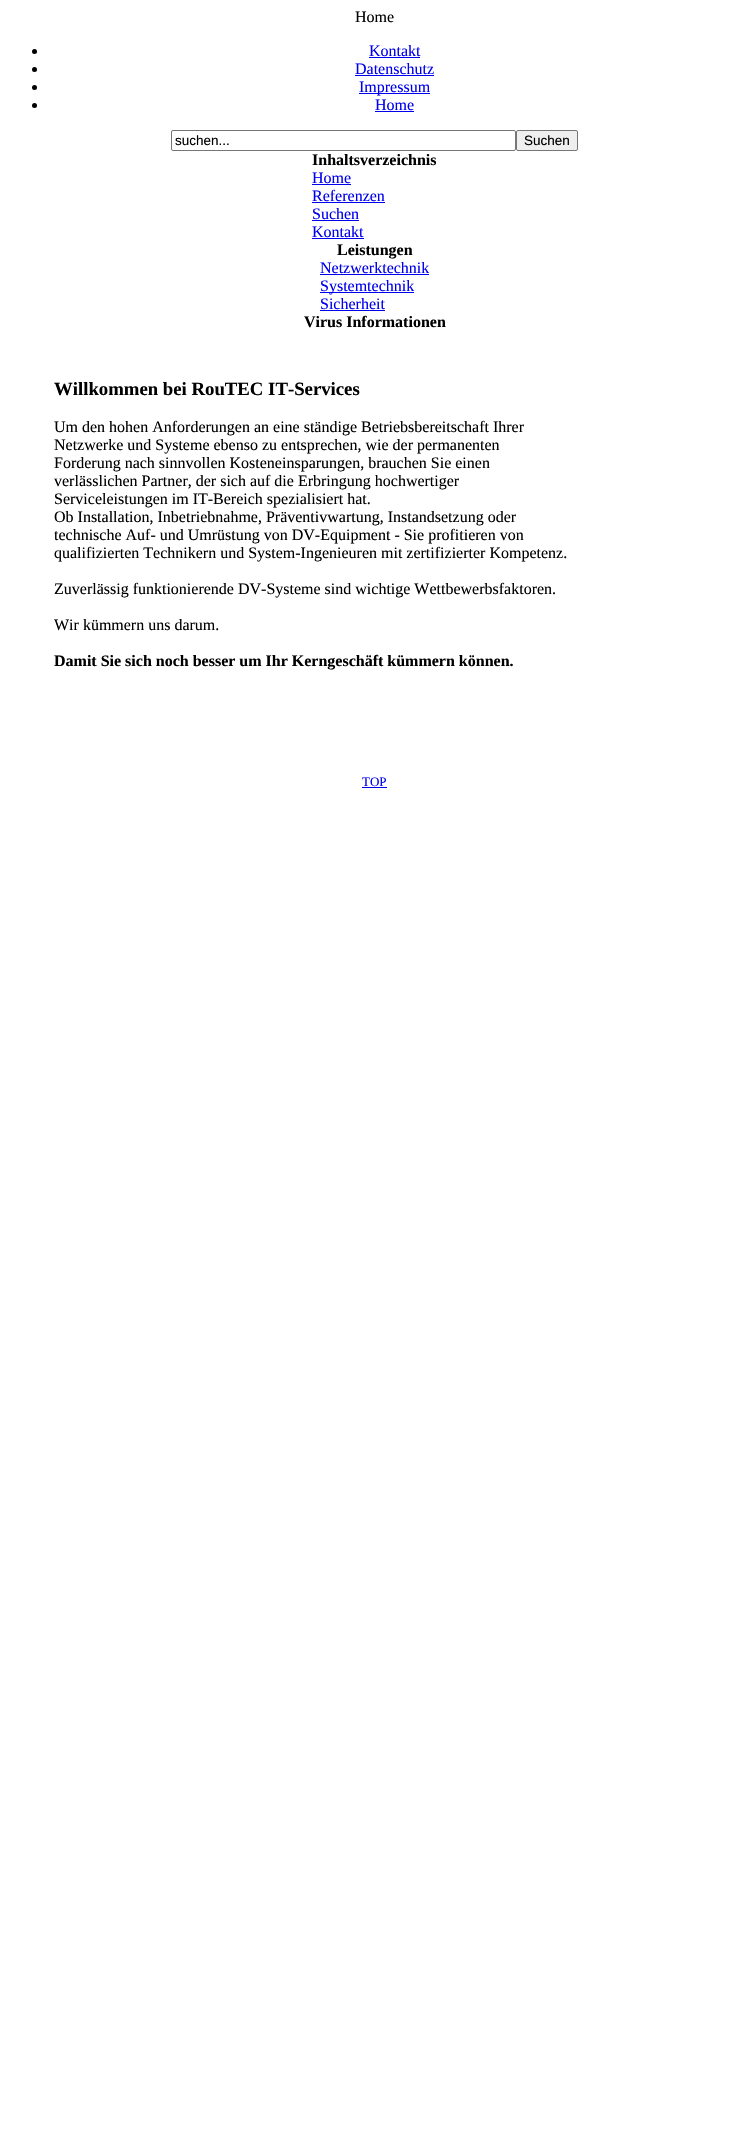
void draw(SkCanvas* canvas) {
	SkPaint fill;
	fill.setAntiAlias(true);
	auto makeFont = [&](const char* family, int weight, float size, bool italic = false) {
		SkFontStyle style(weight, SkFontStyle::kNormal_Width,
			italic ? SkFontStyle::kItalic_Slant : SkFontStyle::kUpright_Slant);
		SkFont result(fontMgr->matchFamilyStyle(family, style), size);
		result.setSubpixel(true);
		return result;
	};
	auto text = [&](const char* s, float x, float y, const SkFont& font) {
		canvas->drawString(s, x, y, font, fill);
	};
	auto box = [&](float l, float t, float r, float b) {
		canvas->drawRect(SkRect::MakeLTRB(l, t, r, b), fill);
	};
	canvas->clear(0xFFFFFFFF);
	fill.setColor(0xFF000000);
	canvas->drawCircle(34.5f, 51.5f, 2.5f, fill);
	fill.setColor(0xFF0000EE);
	box(369, 57, 420, 58);
	fill.setColor(0xFF000000);
	canvas->drawCircle(34.5f, 69.5f, 2.5f, fill);
	fill.setColor(0xFF0000EE);
	box(355, 75, 434, 76);
	fill.setColor(0xFF000000);
	canvas->drawCircle(34.5f, 87.5f, 2.5f, fill);
	fill.setColor(0xFF0000EE);
	box(359, 93, 430, 94);
	fill.setColor(0xFF000000);
	canvas->drawCircle(34.5f, 105.5f, 2.5f, fill);
	fill.setColor(0xFF0000EE);
	box(375, 111, 414, 112);
	fill.setStyle(SkPaint::kStroke_Style);
	fill.setStrokeWidth(1);
	fill.setColor(0xFF767676);
	canvas->drawRoundRect(SkRect::MakeLTRB(171.5f, 130.5f, 515.5f, 150.5f), 1.5f, 1.5f, fill);
	fill.setStyle(SkPaint::kFill_Style);
	fill.setColor(0xFFEFEFEF);
	canvas->drawRoundRect(SkRect::MakeLTRB(516.5f, 130.5f, 577.5f, 150.5f), 1.5f, 1.5f, fill);
	fill.setStyle(SkPaint::kStroke_Style);
	fill.setColor(0xFF767676);
	canvas->drawRoundRect(SkRect::MakeLTRB(516.5f, 130.5f, 577.5f, 150.5f), 1.5f, 1.5f, fill);
	fill.setStyle(SkPaint::kFill_Style);
	fill.setColor(0xFF0000EE);
	box(312, 184, 351, 185);
	box(312, 202, 385, 203);
	box(312, 220, 359, 221);
	box(312, 238, 364, 239);
	box(320, 274, 429, 275);
	box(320, 292, 414, 293);
	box(320, 310, 385, 311);
	box(362, 787, 387, 788);
	auto font1 = makeFont("Liberation Serif", 400, 16);
	fill.setColor(0xFF000000);
	text("Home", 355, 22, font1);
	fill.setColor(0xFF0000EE);
	text("Kontakt", 369, 56, font1);
	text("Datenschutz", 355, 74, font1);
	text("Impressum", 359, 92, font1);
	text("Home", 375, 110, font1);
	auto font2 = makeFont("Liberation Sans", 400, 13.5f);
	fill.setColor(0xFF000000);
	text("suchen...", 175, 145, font2);
	text("Suchen", 524, 145, font2);
	auto font3 = makeFont("Liberation Serif", 700, 16);
	text("Inhaltsverzeichnis", 312, 165, font3);
	fill.setColor(0xFF0000EE);
	text("Home", 312, 183, font1);
	text("Referenzen", 312, 201, font1);
	text("Suchen", 312, 219, font1);
	text("Kontakt", 312, 237, font1);
	fill.setColor(0xFF000000);
	text("Leistungen", 337, 255, font3);
	fill.setColor(0xFF0000EE);
	text("Netzwerktechnik", 320, 273, font1);
	text("Systemtechnik", 320, 291, font1);
	text("Sicherheit", 320, 309, font1);
	fill.setColor(0xFF000000);
	text("Virus Informationen", 304, 327, font3);
	auto font4 = makeFont("Liberation Serif", 700, 18.75f);
	text("Willkommen bei RouTEC IT-Services", 54, 395, font4);
	text("Um den hohen Anforderungen an eine ständige Betriebsbereitschaft Ihrer", 54, 432, font1);
	text("Netzwerke und Systeme ebenso zu entsprechen, wie der permanenten", 54, 450, font1);
	text("Forderung nach sinnvollen Kosteneinsparungen, brauchen Sie einen", 54, 468, font1);
	text("verlässlichen Partner, der sich auf die Erbringung hochwertiger", 54, 486, font1);
	text("Serviceleistungen im IT-Bereich spezialisiert hat.", 54, 504, font1);
	text("Ob Installation, Inbetriebnahme, Präventivwartung, Instandsetzung oder", 54, 522, font1);
	text("technische Auf- und Umrüstung von DV-Equipment - Sie profitieren von", 54, 540, font1);
	text("qualifizierten Technikern und System-Ingenieuren mit zertifizierter Kompetenz.", 54, 558, font1);
	text("Zuverlässig funktionierende DV-Systeme sind wichtige Wettbewerbsfaktoren.", 54, 594, font1);
	text("Wir kümmern uns darum.", 54, 630, font1);
	text("Damit Sie sich noch besser um Ihr Kerngeschäft kümmern können.", 54, 666, font3);
	auto font5 = makeFont("Liberation Serif", 400, 13);
	fill.setColor(0xFF0000EE);
	text("TOP", 362, 786, font5);
}
